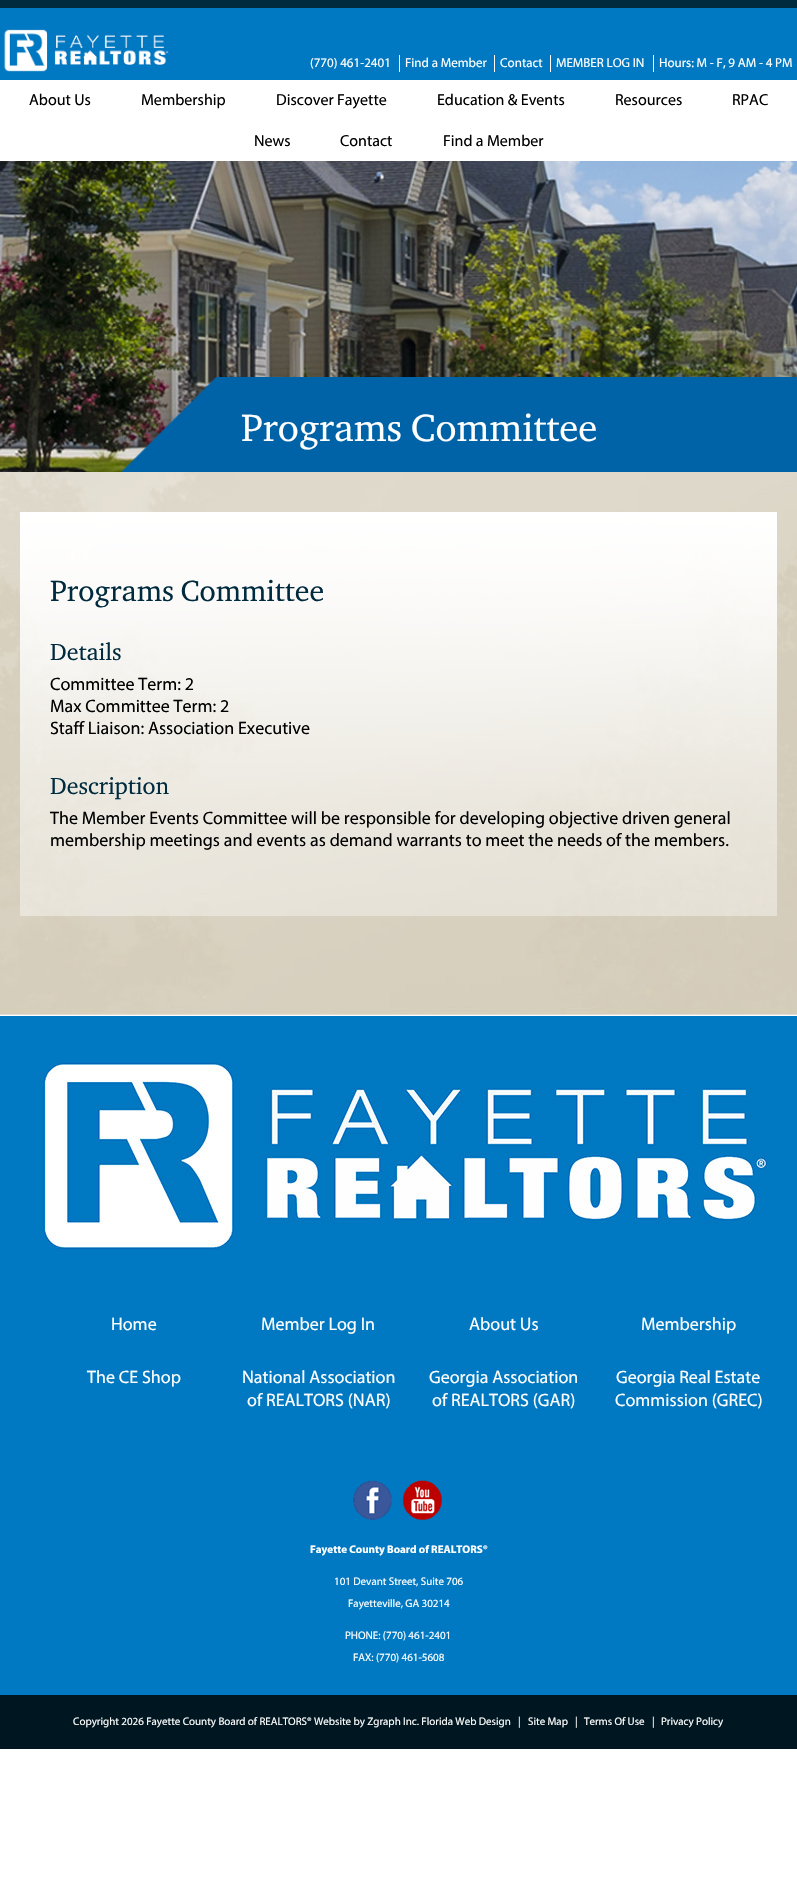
void draw(SkCanvas* canvas) {
	SkPaint fill;
	fill.setAntiAlias(true);
	auto makeFont = [&](const char* family, int weight, float size, bool italic = false) {
		SkFontStyle style(weight, SkFontStyle::kNormal_Width,
			italic ? SkFontStyle::kItalic_Slant : SkFontStyle::kUpright_Slant);
		SkFont result(fontMgr->matchFamilyStyle(family, style), size);
		result.setSubpixel(true);
		return result;
	};
	auto text = [&](const char* s, float x, float y, const SkFont& font) {
		canvas->drawString(s, x, y, font, fill);
	};
	auto box = [&](float l, float t, float r, float b) {
		canvas->drawRect(SkRect::MakeLTRB(l, t, r, b), fill);
	};
	auto picture = [&](const char* path, float l, float t, float r, float b) {
		auto image = SkImages::DeferredFromEncodedData(SkData::MakeFromFileName(path));
		canvas->drawImageRect(image, SkRect::MakeLTRB(l, t, r, b), SkSamplingOptions());
	};
	canvas->clear(0xFFFFFFFF);
	fill.setColor(0xFF0079C2);
	box(0, 8, 797, 80);
	fill.setColor(0xFF002A3E);
	box(0, 0, 797, 8);
	picture("image0.png", 4, 29, 169, 72);
	fill.setColor(0xFFFFFFFF);
	box(399, 55, 400, 72);
	box(494, 55, 495, 72);
	box(550, 55, 551, 72);
	box(653, 55, 654, 72);
	picture("image1.png", 0, 161, 797, 472);
	picture("image2.png", 121, 377, 797, 472);
	picture("image3.png", 0, 472, 797, 1016);
	picture("image4.png", 20, 512, 777, 916);
	fill.setColor(0xFF0079C2);
	box(0, 1016, 797, 1695);
	picture("image5.png", 40, 1062, 768, 1250);
	picture("image6.png", 353, 1480, 392, 1520);
	picture("image7.png", 402, 1480, 442, 1520);
	fill.setColor(0xFF001620);
	box(0, 1695, 797, 1749);
	auto font1 = makeFont("Myriad", 400, 13);
	fill.setColor(0xFFFFFFFF);
	text("(770) 461-2401", 310, 67, font1);
	text("Find a Member", 405, 67, font1);
	text("Contact", 500, 67, font1);
	text("MEMBER LOG IN", 556, 67, font1);
	text("Hours: M - F, 9 AM - 4 PM", 659, 67, font1);
	auto font2 = makeFont("Myriad", 400, 16);
	fill.setColor(0xFF000000);
	text("About Us", 29, 105, font2);
	text("Membership", 141, 105, font2);
	text("Discover Fayette", 276, 105, font2);
	text("Education & Events", 437, 105, font2);
	text("Resources", 615, 105, font2);
	text("RPAC", 732, 105, font2);
	text("News", 254, 146, font2);
	text("Contact", 340, 146, font2);
	text("Find a Member", 443, 146, font2);
	auto font3 = makeFont("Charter", 400, 39);
	fill.setColor(0xFFFFFFFF);
	text("Programs Committee", 241, 441, font3);
	auto font4 = makeFont("Charter", 400, 30);
	fill.setColor(0xFF002A3E);
	text("Programs Committee", 50, 601, font4);
	auto font5 = makeFont("Charter", 400, 24);
	text("Details", 50, 660, font5);
	auto font6 = makeFont("Myriad", 400, 18);
	fill.setColor(0xFF000000);
	text("Committee Term: 2", 50, 690, font6);
	text("Max Committee Term: 2", 50, 712, font6);
	text("Staff Liaison: Association Executive", 50, 734, font6);
	fill.setColor(0xFF002A3E);
	text("Description", 50, 794, font5);
	fill.setColor(0xFF000000);
	text("The Member Events Committee will be responsible for developing objective driven general", 50, 824, font6);
	text("membership meetings and events as demand warrants to meet the needs of the members.", 50, 846, font6);
	fill.setColor(0xFFFFFFFF);
	text("Home", 111, 1330, font6);
	text("Member Log In", 261, 1330, font6);
	text("About Us", 469, 1330, font6);
	text("Membership", 641, 1330, font6);
	text("The CE Shop", 87, 1383, font6);
	text("National Association", 242, 1383, font6);
	text("of REALTORS (NAR)", 247, 1406, font6);
	text("Georgia Association", 429, 1383, font6);
	text("of REALTORS (GAR)", 432, 1406, font6);
	text("Georgia Real Estate", 616, 1383, font6);
	text("Commission (GREC)", 615, 1406, font6);
	auto font7 = makeFont("Myriad", 700, 11);
	text("Fayette County Board of REALTORS®", 310, 1553, font7);
	auto font8 = makeFont("Myriad", 400, 11);
	text("101 Devant Street, Suite 706", 334, 1585, font8);
	text("Fayetteville, GA 30214", 348, 1607, font8);
	text("PHONE: (770) 461-2401", 345, 1639, font8);
	text("FAX: (770) 461-5608", 353, 1661, font8);
	text("Copyright 2026 Fayette County Board of REALTORS® Website by Zgraph Inc. Florida Web Design", 73, 1725, font8);
	text("|", 518, 1725, font8);
	text("Site Map", 528, 1725, font8);
	text("|", 575, 1725, font8);
	text("Terms Of Use", 584, 1725, font8);
	text("|", 652, 1725, font8);
	text("Privacy Policy", 661, 1725, font8);
}
